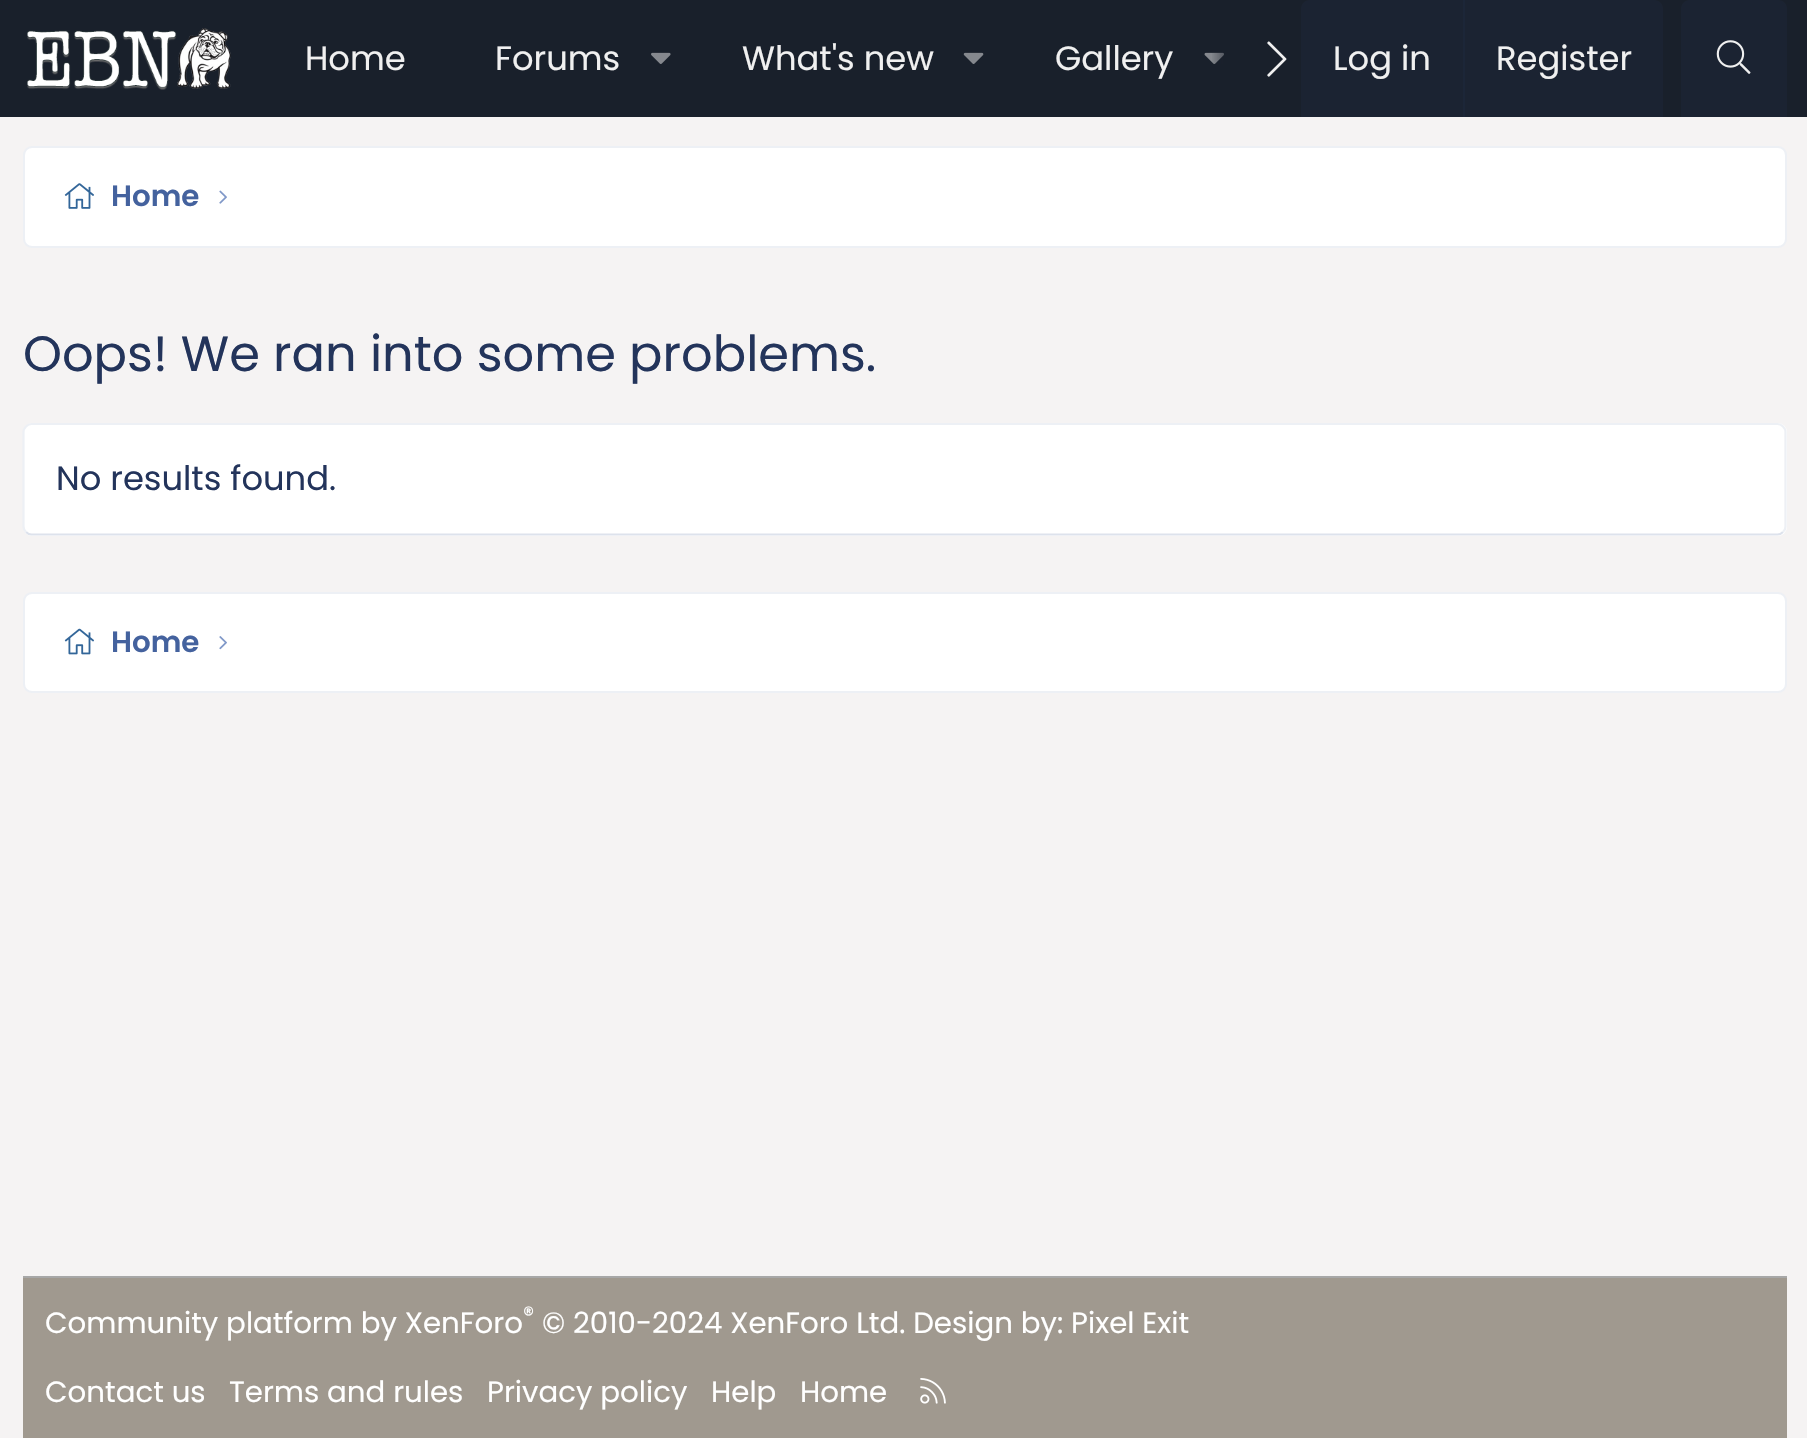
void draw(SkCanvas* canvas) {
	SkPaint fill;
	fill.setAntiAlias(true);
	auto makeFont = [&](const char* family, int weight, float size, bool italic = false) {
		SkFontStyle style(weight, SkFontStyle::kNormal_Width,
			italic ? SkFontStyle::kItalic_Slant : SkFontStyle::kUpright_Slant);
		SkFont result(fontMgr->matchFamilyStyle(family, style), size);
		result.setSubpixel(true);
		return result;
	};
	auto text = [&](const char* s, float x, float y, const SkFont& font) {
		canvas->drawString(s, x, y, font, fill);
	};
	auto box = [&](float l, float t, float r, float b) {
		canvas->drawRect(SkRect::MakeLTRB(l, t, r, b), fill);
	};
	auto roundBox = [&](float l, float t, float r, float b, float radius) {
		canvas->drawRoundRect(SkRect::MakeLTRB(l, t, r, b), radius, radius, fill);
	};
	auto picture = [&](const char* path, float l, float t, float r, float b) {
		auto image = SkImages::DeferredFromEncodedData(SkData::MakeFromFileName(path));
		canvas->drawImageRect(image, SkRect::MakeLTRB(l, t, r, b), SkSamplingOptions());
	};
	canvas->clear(0xFFF5F3F3);
	fill.setColor(0xFF19202B);
	box(0, 0, 1807, 117);
	picture("image0.png", 27, 28, 231, 90);
	picture("image1.png", 651, 52, 671, 64);
	picture("image2.png", 963, 52, 984, 64);
	picture("image3.png", 1204, 52, 1224, 64);
	{
		const SkColor colors[] = {0x0019202B, 0xFF19202B};
		const float stops[] = {0, 0.33f};
		const SkPoint ends[] = {{1211, 59}, {1301, 59}};
		fill.setShader(SkGradientShader::MakeLinear(ends, colors, stops, 2, SkTileMode::kClamp));
		fill.setAlpha(255);
	}
	box(1212, 52, 1224, 64);
	picture("image4.png", 1267, 41, 1287, 77);
	fill.setShader(nullptr);
	fill.setColor(0xFF1B2332);
	canvas->drawPath(SkPathBuilder().moveTo(1310, 0).lineTo(1654, 0).cubicTo(1659, 0, 1663, 4, 1663, 9).lineTo(1663, 117).lineTo(1301, 117).lineTo(1301, 9).cubicTo(1301, 4, 1305, 0, 1310, 0).close().detach(), fill);
	fill.setColor(0xFF1C2638);
	box(1463, 0, 1465, 117);
	fill.setColor(0xFF1B2332);
	canvas->drawPath(SkPathBuilder().moveTo(1690, 0).lineTo(1778, 0).cubicTo(1783, 0, 1787, 4, 1787, 9).lineTo(1787, 117).lineTo(1681, 117).lineTo(1681, 9).cubicTo(1681, 4, 1685, 0, 1690, 0).close().detach(), fill);
	picture("image5.png", 1716, 40, 1751, 74);
	fill.setColor(0xFFFFFFFF);
	canvas->drawRoundRect(SkRect::MakeLTRB(24, 147, 1786, 247), 8, 8, fill);
	fill.setStyle(SkPaint::kStroke_Style);
	fill.setStrokeWidth(2);
	fill.setColor(0xFFEDF0F5);
	canvas->drawRoundRect(SkRect::MakeLTRB(24, 147, 1786, 247), 8, 8, fill);
	picture("image6.png", 64, 183, 94, 209);
	picture("image7.png", 219, 190, 227, 204);
	fill.setStyle(SkPaint::kFill_Style);
	fill.setColor(0xFFFFFFFF);
	roundBox(23, 423, 1787, 536, 9);
	fill.setStyle(SkPaint::kStroke_Style);
	fill.setStrokeWidth(2.2f);
	fill.setColor(0xFFDDE2EC);
	canvas->drawPath(SkPathBuilder().moveTo(1783, 532).cubicTo(1781.5f, 533.5f, 1779.5f, 534.5f, 1777.5f, 534.5f).lineTo(31.5f, 534.5f).cubicTo(29.5f, 534.5f, 27.5f, 533.5f, 26, 532).detach(), fill);
	fill.setColor(0xFFEDF0F5);
	canvas->drawPath(SkPathBuilder().moveTo(26, 532).cubicTo(24.5f, 530.5f, 23.5f, 528.5f, 23.5f, 526.5f).lineTo(23.5f, 432).cubicTo(23.5f, 430, 24.5f, 428, 26, 426.5f).cubicTo(27.5f, 425, 29.5f, 424, 31.5f, 424).lineTo(1777.5f, 424).cubicTo(1779.5f, 424, 1781.5f, 425, 1783, 426.5f).cubicTo(1784.5f, 428, 1785.5f, 430, 1785.5f, 432).lineTo(1785.5f, 526.5f).cubicTo(1785.5f, 528.5f, 1784.5f, 530.5f, 1783, 532).detach(), fill);
	fill.setStyle(SkPaint::kFill_Style);
	fill.setColor(0xFFFFFFFF);
	canvas->drawRoundRect(SkRect::MakeLTRB(24, 593, 1786, 692), 8, 8, fill);
	fill.setStyle(SkPaint::kStroke_Style);
	fill.setStrokeWidth(2);
	fill.setColor(0xFFEDF0F5);
	canvas->drawRoundRect(SkRect::MakeLTRB(24, 593, 1786, 692), 8, 8, fill);
	picture("image8.png", 64, 628, 94, 655);
	picture("image9.png", 219, 636, 227, 650);
	fill.setStyle(SkPaint::kFill_Style);
	fill.setColor(0xFFA0998F);
	box(23, 1278, 1787, 1438);
	fill.setColor(0xFFA7A7A7);
	box(23, 1276, 1787, 1278);
	picture("image10.png", 920, 1378, 946, 1404);
	auto font1 = makeFont("Poppins", 400, 33.75f);
	fill.setColor(0xFFF0F0F0);
	text("Home", 305, 70, font1);
	text("Forums", 495, 70, font1);
	text("What's new", 742, 70, font1);
	text("Gallery", 1055, 70, font1);
	text("Log in", 1333, 70, font1);
	text("Register", 1496, 70, font1);
	auto font2 = makeFont("Poppins", 600, 29.25f);
	fill.setColor(0xFF44629E);
	text("Home", 111, 206, font2);
	auto font3 = makeFont("Poppins", 400, 49.5f);
	fill.setColor(0xFF23345B);
	text("Oops! We ran into some problems.", 23, 371, font3);
	text("No results found.", 56, 490, font1);
	fill.setColor(0xFF44629E);
	text("Home", 111, 652, font2);
	auto font4 = makeFont("Poppins", 400, 29.25f);
	fill.setColor(0xFFFFFFFF);
	text("Community platform by XenForo", 45, 1333, font4);
	auto font5 = makeFont("Poppins", 400, 22);
	text("®", 523, 1322, font5);
	text("© 2010-2024 XenForo Ltd. Design by: Pixel Exit", 542, 1333, font4);
	text("Contact us", 45, 1402, font4);
	text("Terms and rules", 229, 1402, font4);
	text("Privacy policy", 487, 1402, font4);
	text("Help", 711, 1402, font4);
	text("Home", 800, 1402, font4);
}
